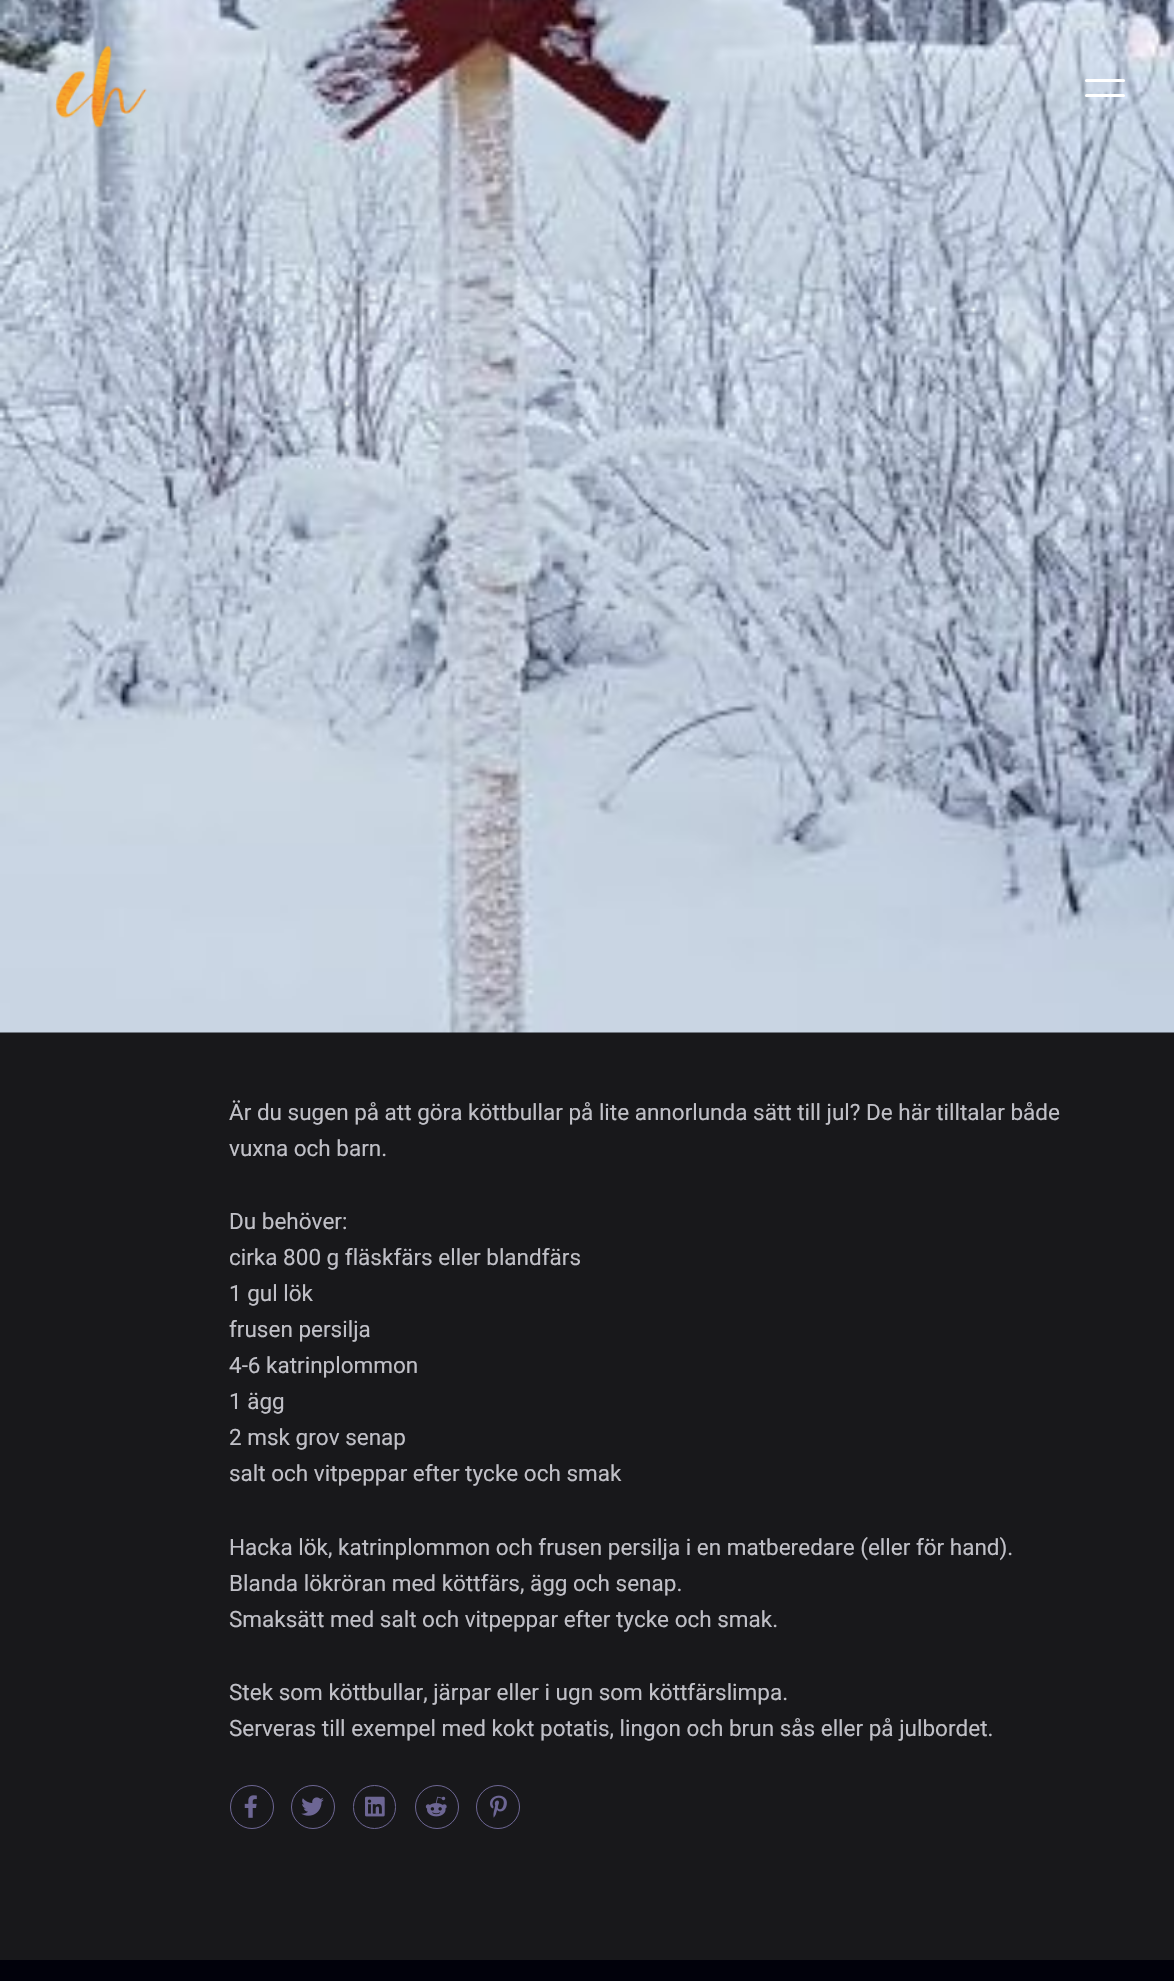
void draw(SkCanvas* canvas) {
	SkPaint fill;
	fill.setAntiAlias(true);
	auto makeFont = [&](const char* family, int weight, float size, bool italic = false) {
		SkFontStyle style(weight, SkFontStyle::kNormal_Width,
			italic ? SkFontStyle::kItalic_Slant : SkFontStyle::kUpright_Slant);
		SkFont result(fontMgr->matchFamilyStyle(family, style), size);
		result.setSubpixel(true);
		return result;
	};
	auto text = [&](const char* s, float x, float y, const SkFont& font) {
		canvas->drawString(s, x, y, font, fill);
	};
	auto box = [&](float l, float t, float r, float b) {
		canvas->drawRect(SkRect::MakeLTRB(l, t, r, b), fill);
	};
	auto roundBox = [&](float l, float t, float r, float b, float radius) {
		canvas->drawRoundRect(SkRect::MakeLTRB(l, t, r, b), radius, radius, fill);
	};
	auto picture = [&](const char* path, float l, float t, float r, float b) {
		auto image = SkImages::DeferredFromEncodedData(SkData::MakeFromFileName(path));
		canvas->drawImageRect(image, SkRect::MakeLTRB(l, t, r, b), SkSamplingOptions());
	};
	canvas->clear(0xFF18181B);
	picture("image1.png", 0, 0, 1174, 1033);
	picture("image0.png", 55, 45, 147, 128);
	fill.setColor(0xFFFFFFFF);
	roundBox(1085, 79, 1125, 82, 1.5f);
	roundBox(1085, 94, 1125, 97, 1.5f);
	fill.setStyle(SkPaint::kStroke_Style);
	fill.setStrokeWidth(1);
	fill.setColor(0xFF6D6694);
	canvas->drawCircle(252, 1807, 21.5f, fill);
	picture("image2.png", 244, 1795, 257, 1818);
	canvas->drawCircle(313, 1807, 21.5f, fill);
	picture("image3.png", 301, 1797, 324, 1816);
	canvas->drawRoundRect(SkRect::MakeLTRB(353.5f, 1785.5f, 395.5f, 1828.5f), 21, 21, fill);
	picture("image4.png", 365, 1796, 385, 1817);
	canvas->drawCircle(437, 1807, 21.5f, fill);
	picture("image5.png", 425, 1796, 447, 1817);
	canvas->drawCircle(498, 1807, 21.5f, fill);
	picture("image6.png", 490, 1795, 507, 1818);
	fill.setStyle(SkPaint::kFill_Style);
	fill.setColor(0xFF01010B);
	box(0, 1960, 1174, 1981);
	auto font1 = makeFont("Roboto", 400, 22.5f);
	fill.setColor(0xFFC0C0C7);
	text("Är du sugen på att göra köttbullar på lite annorlunda sätt till jul? De här tilltalar både", 229, 1120, font1);
	text("vuxna och barn.", 229, 1156, font1);
	text("Du behöver:", 229, 1229, font1);
	text("cirka 800 g fläskfärs eller blandfärs", 229, 1265, font1);
	text("1 gul lök", 229, 1301, font1);
	text("frusen persilja", 229, 1337, font1);
	text("4-6 katrinplommon", 229, 1373, font1);
	text("1 ägg", 229, 1409, font1);
	text("2 msk grov senap", 229, 1445, font1);
	text("salt och vitpeppar efter tycke och smak", 229, 1481, font1);
	text("Hacka lök, katrinplommon och frusen persilja i en matberedare (eller för hand).", 229, 1555, font1);
	text("Blanda lökröran med köttfärs, ägg och senap.", 229, 1591, font1);
	text("Smaksätt med salt och vitpeppar efter tycke och smak.", 229, 1627, font1);
	text("Stek som köttbullar, järpar eller i ugn som köttfärslimpa.", 229, 1700, font1);
	text("Serveras till exempel med kokt potatis, lingon och brun sås eller på julbordet.", 229, 1736, font1);
}
